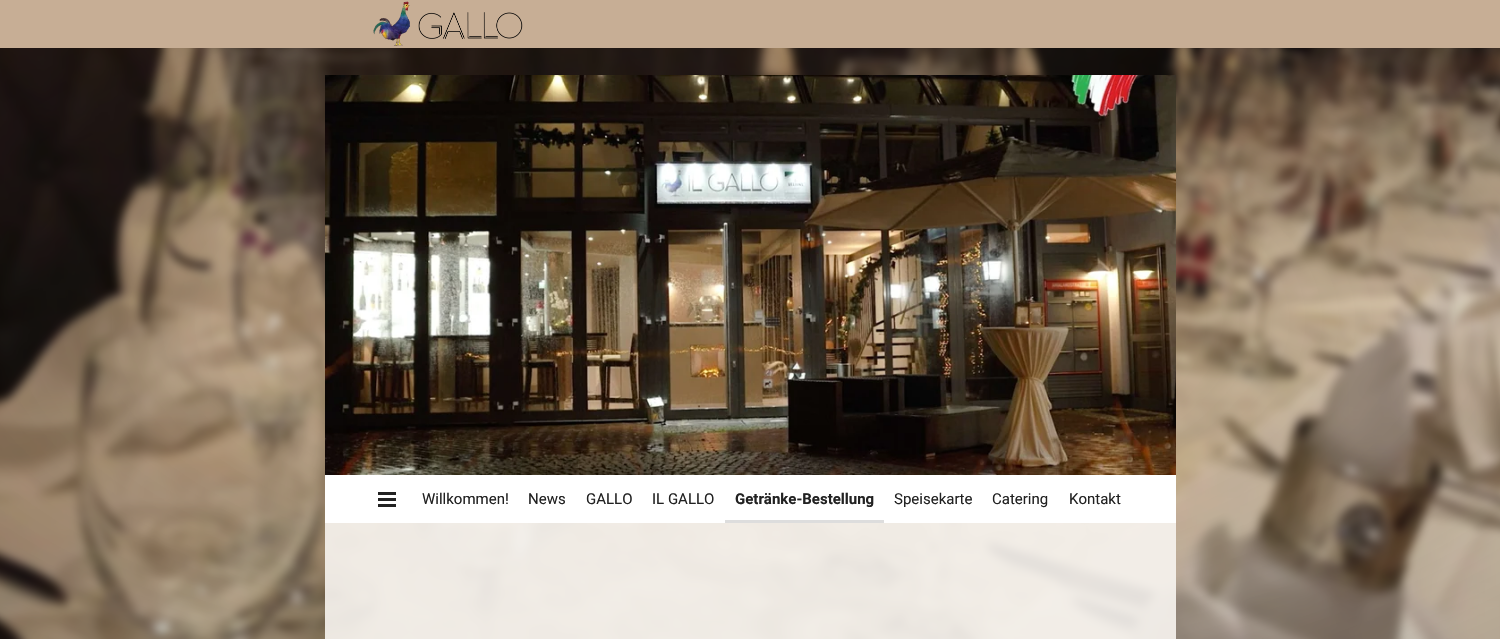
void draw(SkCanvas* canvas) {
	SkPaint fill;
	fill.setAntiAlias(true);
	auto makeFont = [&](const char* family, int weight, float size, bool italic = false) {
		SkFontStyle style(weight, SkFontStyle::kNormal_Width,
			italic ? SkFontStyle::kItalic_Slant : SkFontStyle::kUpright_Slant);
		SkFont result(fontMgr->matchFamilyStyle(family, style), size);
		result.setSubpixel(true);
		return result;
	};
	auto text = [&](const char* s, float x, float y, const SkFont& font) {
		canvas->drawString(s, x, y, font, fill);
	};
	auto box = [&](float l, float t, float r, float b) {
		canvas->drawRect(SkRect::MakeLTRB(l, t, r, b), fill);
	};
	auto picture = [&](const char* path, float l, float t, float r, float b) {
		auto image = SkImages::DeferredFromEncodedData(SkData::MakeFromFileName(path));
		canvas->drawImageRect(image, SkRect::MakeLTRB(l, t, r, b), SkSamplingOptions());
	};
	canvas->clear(0xFFFFFFFF);
	picture("image0.png", 0, 48, 1500, 639);
	fill.setColor(0xFFC7AE95);
	box(0, 0, 1500, 48);
	picture("image1.png", 373, 1, 523, 46);
	picture("image2.png", 325, 75, 1176, 475);
	fill.setColor(0xFFFFFFFF);
	box(325, 475, 1176, 523);
	fill.setColor(0xFF222222);
	box(378, 492, 396, 495);
	box(378, 498, 396, 501);
	box(378, 504, 396, 507);
	fill.setColor(0xFFDDDDDD);
	box(725, 520, 884, 523);
	fill.setColor(0xE6F7F4F0);
	box(325, 523, 1176, 639);
	auto font1 = makeFont("Roboto", 400, 15);
	fill.setColor(0xFF222222);
	text("Willkommen!", 422, 504, font1);
	text("News", 528, 504, font1);
	text("GALLO", 586, 504, font1);
	text("IL GALLO", 652, 504, font1);
	auto font2 = makeFont("Roboto", 700, 15);
	text("Getränke-Bestellung", 735, 504, font2);
	text("Speisekarte", 894, 504, font1);
	text("Catering", 992, 504, font1);
	text("Kontakt", 1069, 504, font1);
}
